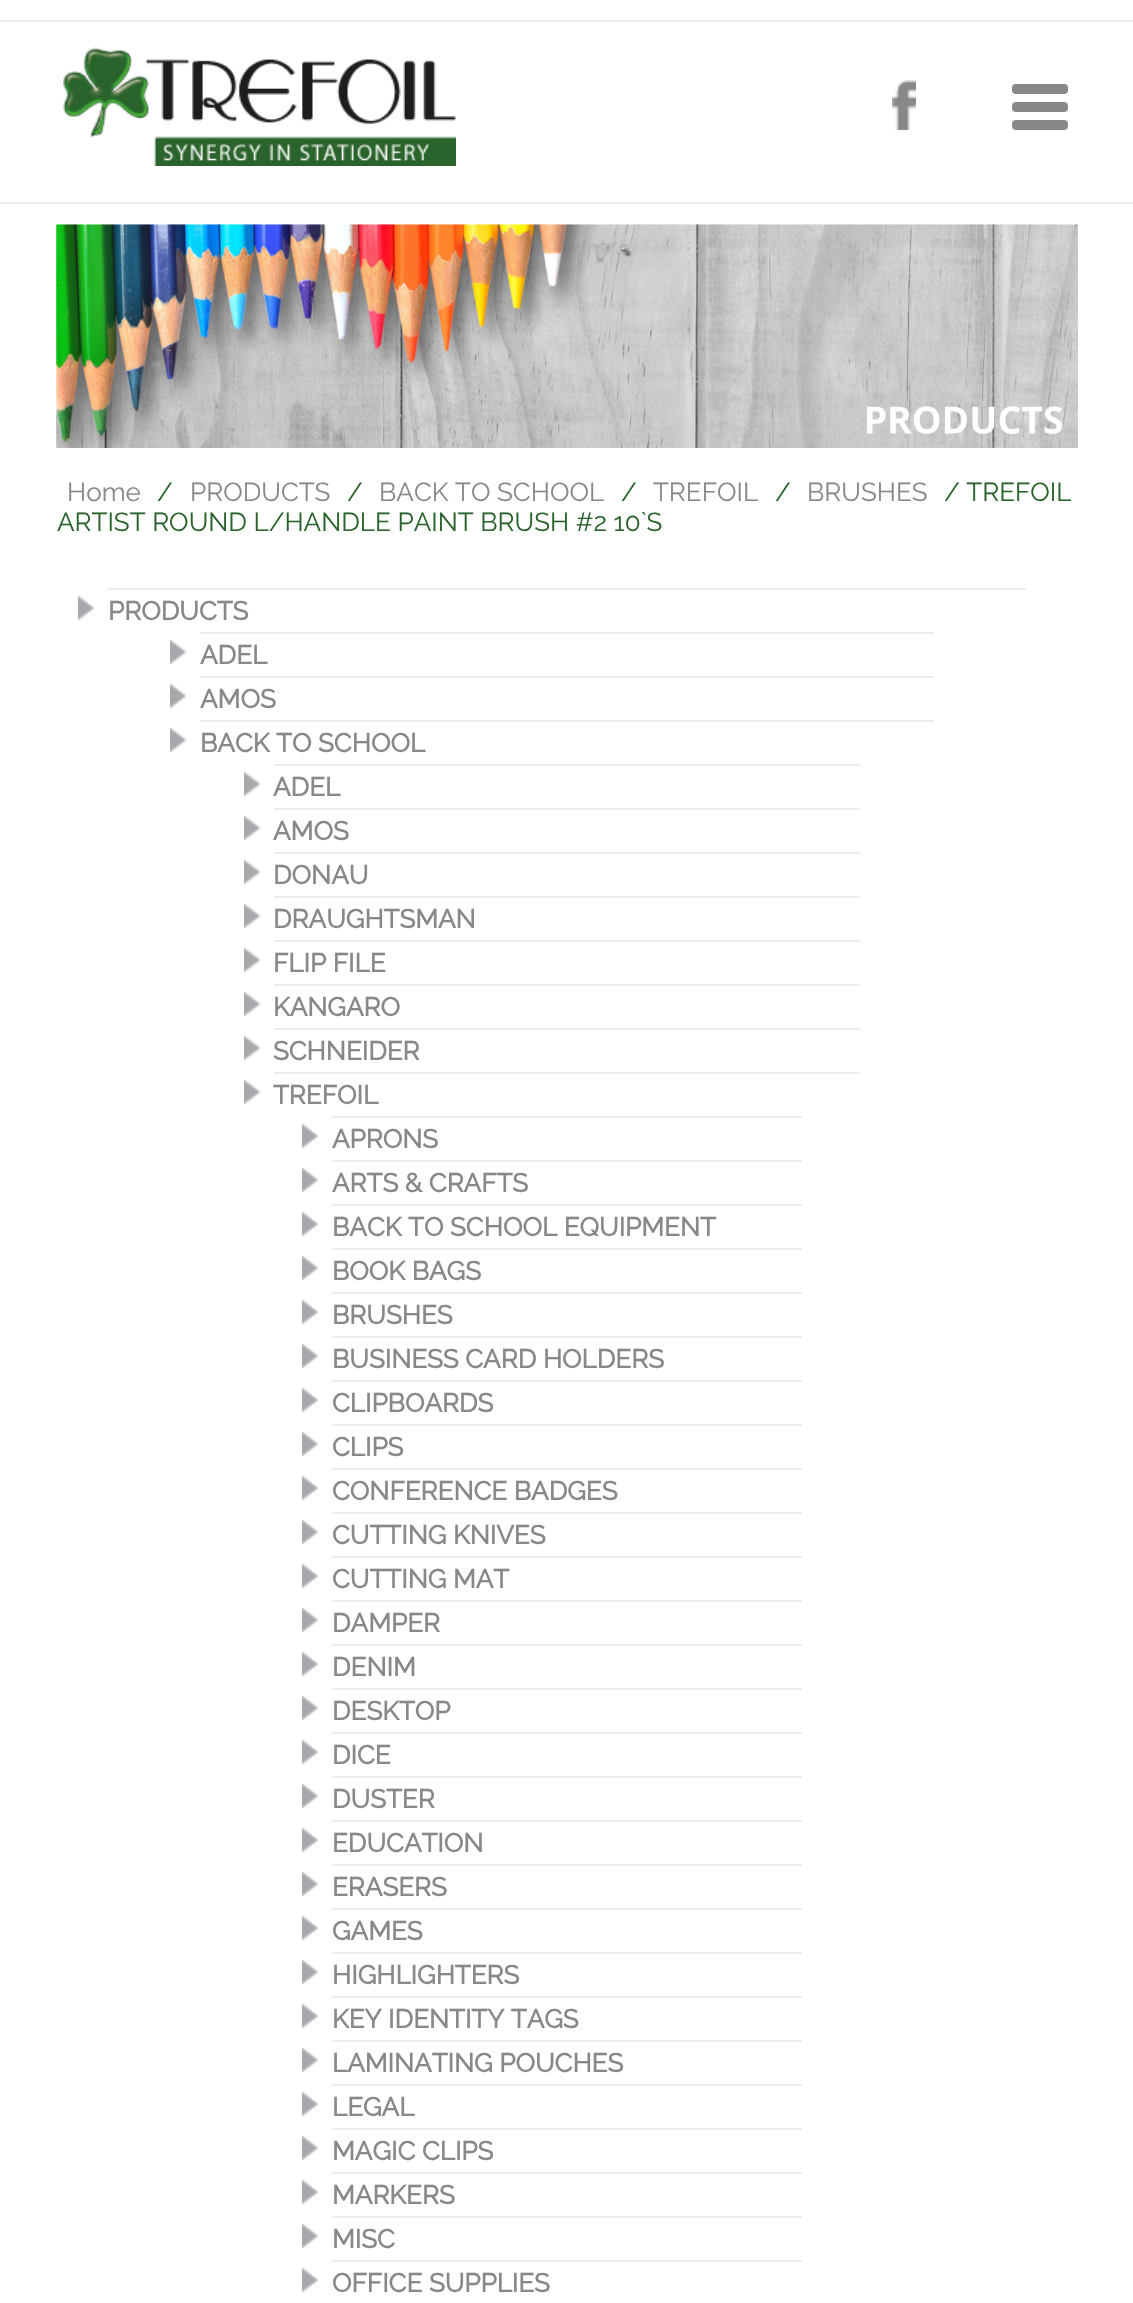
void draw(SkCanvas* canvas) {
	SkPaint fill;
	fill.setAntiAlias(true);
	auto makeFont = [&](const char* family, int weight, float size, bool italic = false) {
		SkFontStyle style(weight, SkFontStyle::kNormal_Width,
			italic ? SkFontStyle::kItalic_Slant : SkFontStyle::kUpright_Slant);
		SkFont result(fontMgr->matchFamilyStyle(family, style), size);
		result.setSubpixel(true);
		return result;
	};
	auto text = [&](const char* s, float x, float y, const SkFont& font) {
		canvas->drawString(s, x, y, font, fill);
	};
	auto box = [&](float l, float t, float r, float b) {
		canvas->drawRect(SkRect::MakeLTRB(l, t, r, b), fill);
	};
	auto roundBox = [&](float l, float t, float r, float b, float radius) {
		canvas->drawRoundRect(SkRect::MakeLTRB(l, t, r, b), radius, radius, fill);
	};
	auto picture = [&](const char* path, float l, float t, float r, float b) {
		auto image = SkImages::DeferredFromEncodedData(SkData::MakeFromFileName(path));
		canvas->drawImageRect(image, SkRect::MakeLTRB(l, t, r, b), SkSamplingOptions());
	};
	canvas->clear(0xFFFFFFFF);
	fill.setColor(0xFFEDEDED);
	box(0, 20, 1133, 22);
	box(0, 202, 1133, 204);
	picture("image0.png", 63, 47, 456, 166);
	picture("image1.png", 892, 80, 916, 130);
	fill.setColor(0xFF888888);
	roundBox(1012, 102, 1068, 112, 4);
	roundBox(1012, 84, 1068, 94, 4);
	roundBox(1012, 120, 1068, 130, 4);
	picture("image2.png", 56, 224, 1078, 448);
	fill.setColor(0xFFEDEDED);
	box(108, 588, 1026, 590);
	picture("image3.png", 78, 596, 94, 620);
	box(200, 632, 934, 634);
	box(200, 676, 934, 678);
	picture("image3.png", 170, 640, 186, 664);
	box(200, 720, 934, 722);
	picture("image3.png", 170, 684, 186, 708);
	picture("image3.png", 170, 728, 186, 752);
	box(274, 764, 860, 766);
	box(274, 808, 860, 810);
	picture("image3.png", 244, 772, 260, 796);
	box(274, 852, 860, 854);
	picture("image3.png", 244, 816, 260, 840);
	box(274, 896, 860, 898);
	picture("image3.png", 244, 860, 260, 884);
	box(274, 940, 860, 942);
	picture("image3.png", 244, 904, 260, 928);
	box(274, 984, 860, 986);
	picture("image3.png", 244, 948, 260, 972);
	box(274, 1028, 860, 1030);
	picture("image3.png", 244, 992, 260, 1016);
	box(274, 1072, 860, 1074);
	picture("image3.png", 244, 1036, 260, 1060);
	picture("image3.png", 244, 1080, 260, 1104);
	box(332, 1116, 802, 1118);
	box(332, 1160, 802, 1162);
	picture("image3.png", 302, 1124, 318, 1148);
	box(332, 1204, 802, 1206);
	picture("image3.png", 302, 1168, 318, 1192);
	box(332, 1248, 802, 1250);
	picture("image3.png", 302, 1212, 318, 1236);
	box(332, 1292, 802, 1294);
	picture("image3.png", 302, 1256, 318, 1280);
	box(332, 1336, 802, 1338);
	picture("image3.png", 302, 1300, 318, 1324);
	box(332, 1380, 802, 1382);
	picture("image3.png", 302, 1344, 318, 1368);
	box(332, 1424, 802, 1426);
	picture("image3.png", 302, 1388, 318, 1412);
	box(332, 1468, 802, 1470);
	picture("image3.png", 302, 1432, 318, 1456);
	box(332, 1512, 802, 1514);
	picture("image3.png", 302, 1476, 318, 1500);
	box(332, 1556, 802, 1558);
	picture("image3.png", 302, 1520, 318, 1544);
	box(332, 1600, 802, 1602);
	picture("image3.png", 302, 1564, 318, 1588);
	box(332, 1644, 802, 1646);
	picture("image3.png", 302, 1608, 318, 1632);
	box(332, 1688, 802, 1690);
	picture("image3.png", 302, 1652, 318, 1676);
	box(332, 1732, 802, 1734);
	picture("image3.png", 302, 1696, 318, 1720);
	box(332, 1776, 802, 1778);
	picture("image3.png", 302, 1740, 318, 1764);
	box(332, 1820, 802, 1822);
	picture("image3.png", 302, 1784, 318, 1808);
	box(332, 1864, 802, 1866);
	picture("image3.png", 302, 1828, 318, 1852);
	box(332, 1908, 802, 1910);
	picture("image3.png", 302, 1872, 318, 1896);
	box(332, 1952, 802, 1954);
	picture("image3.png", 302, 1916, 318, 1940);
	box(332, 1996, 802, 1998);
	picture("image3.png", 302, 1960, 318, 1984);
	box(332, 2040, 802, 2042);
	picture("image3.png", 302, 2004, 318, 2028);
	box(332, 2084, 802, 2086);
	picture("image3.png", 302, 2048, 318, 2072);
	box(332, 2128, 802, 2130);
	picture("image3.png", 302, 2092, 318, 2116);
	box(332, 2172, 802, 2174);
	picture("image3.png", 302, 2136, 318, 2160);
	box(332, 2216, 802, 2218);
	picture("image3.png", 302, 2180, 318, 2204);
	box(332, 2260, 802, 2262);
	picture("image3.png", 302, 2224, 318, 2248);
	picture("image3.png", 302, 2268, 318, 2292);
	auto font1 = makeFont("Raleway", 100, 26);
	fill.setColor(0xFF888888);
	text("Home", 67, 501, font1);
	fill.setColor(0xFF2A632B);
	text("/", 157, 501, font1);
	fill.setColor(0xFF888888);
	text("PRODUCTS", 190, 501, font1);
	fill.setColor(0xFF2A632B);
	text("/", 347, 501, font1);
	fill.setColor(0xFF888888);
	text("BACK TO SCHOOL", 379, 501, font1);
	fill.setColor(0xFF2A632B);
	text("/", 621, 501, font1);
	fill.setColor(0xFF888888);
	text("TREFOIL", 653, 501, font1);
	fill.setColor(0xFF2A632B);
	text("/", 775, 501, font1);
	fill.setColor(0xFF888888);
	text("BRUSHES", 807, 501, font1);
	fill.setColor(0xFF2A632B);
	text("/ TREFOIL", 944, 501, font1);
	text("ARTIST ROUND L/HANDLE PAINT BRUSH #2 10`S", 57, 531, font1);
	auto font2 = makeFont("Raleway", 700, 26);
	fill.setColor(0xFF888888);
	text("PRODUCTS", 108, 620, font2);
	text("ADEL", 200, 664, font2);
	text("AMOS", 200, 708, font2);
	text("BACK TO SCHOOL", 200, 752, font2);
	text("ADEL", 273, 796, font2);
	text("AMOS", 273, 840, font2);
	text("DONAU", 273, 884, font2);
	text("DRAUGHTSMAN", 273, 928, font2);
	text("FLIP FILE", 273, 972, font2);
	text("KANGARO", 273, 1016, font2);
	text("SCHNEIDER", 273, 1060, font2);
	text("TREFOIL", 273, 1104, font2);
	text("APRONS", 332, 1148, font2);
	text("ARTS & CRAFTS", 332, 1192, font2);
	text("BACK TO SCHOOL EQUIPMENT", 332, 1236, font2);
	text("BOOK BAGS", 332, 1280, font2);
	text("BRUSHES", 332, 1324, font2);
	text("BUSINESS CARD HOLDERS", 332, 1368, font2);
	text("CLIPBOARDS", 332, 1412, font2);
	text("CLIPS", 332, 1456, font2);
	text("CONFERENCE BADGES", 332, 1500, font2);
	text("CUTTING KNIVES", 332, 1544, font2);
	text("CUTTING MAT", 332, 1588, font2);
	text("DAMPER", 332, 1632, font2);
	text("DENIM", 332, 1676, font2);
	text("DESKTOP", 332, 1720, font2);
	text("DICE", 332, 1764, font2);
	text("DUSTER", 332, 1808, font2);
	text("EDUCATION", 332, 1852, font2);
	text("ERASERS", 332, 1896, font2);
	text("GAMES", 332, 1940, font2);
	text("HIGHLIGHTERS", 332, 1984, font2);
	text("KEY IDENTITY TAGS", 332, 2028, font2);
	text("LAMINATING POUCHES", 332, 2072, font2);
	text("LEGAL", 332, 2116, font2);
	text("MAGIC CLIPS", 332, 2160, font2);
	text("MARKERS", 332, 2204, font2);
	text("MISC", 332, 2248, font2);
	text("OFFICE SUPPLIES", 332, 2292, font2);
}
